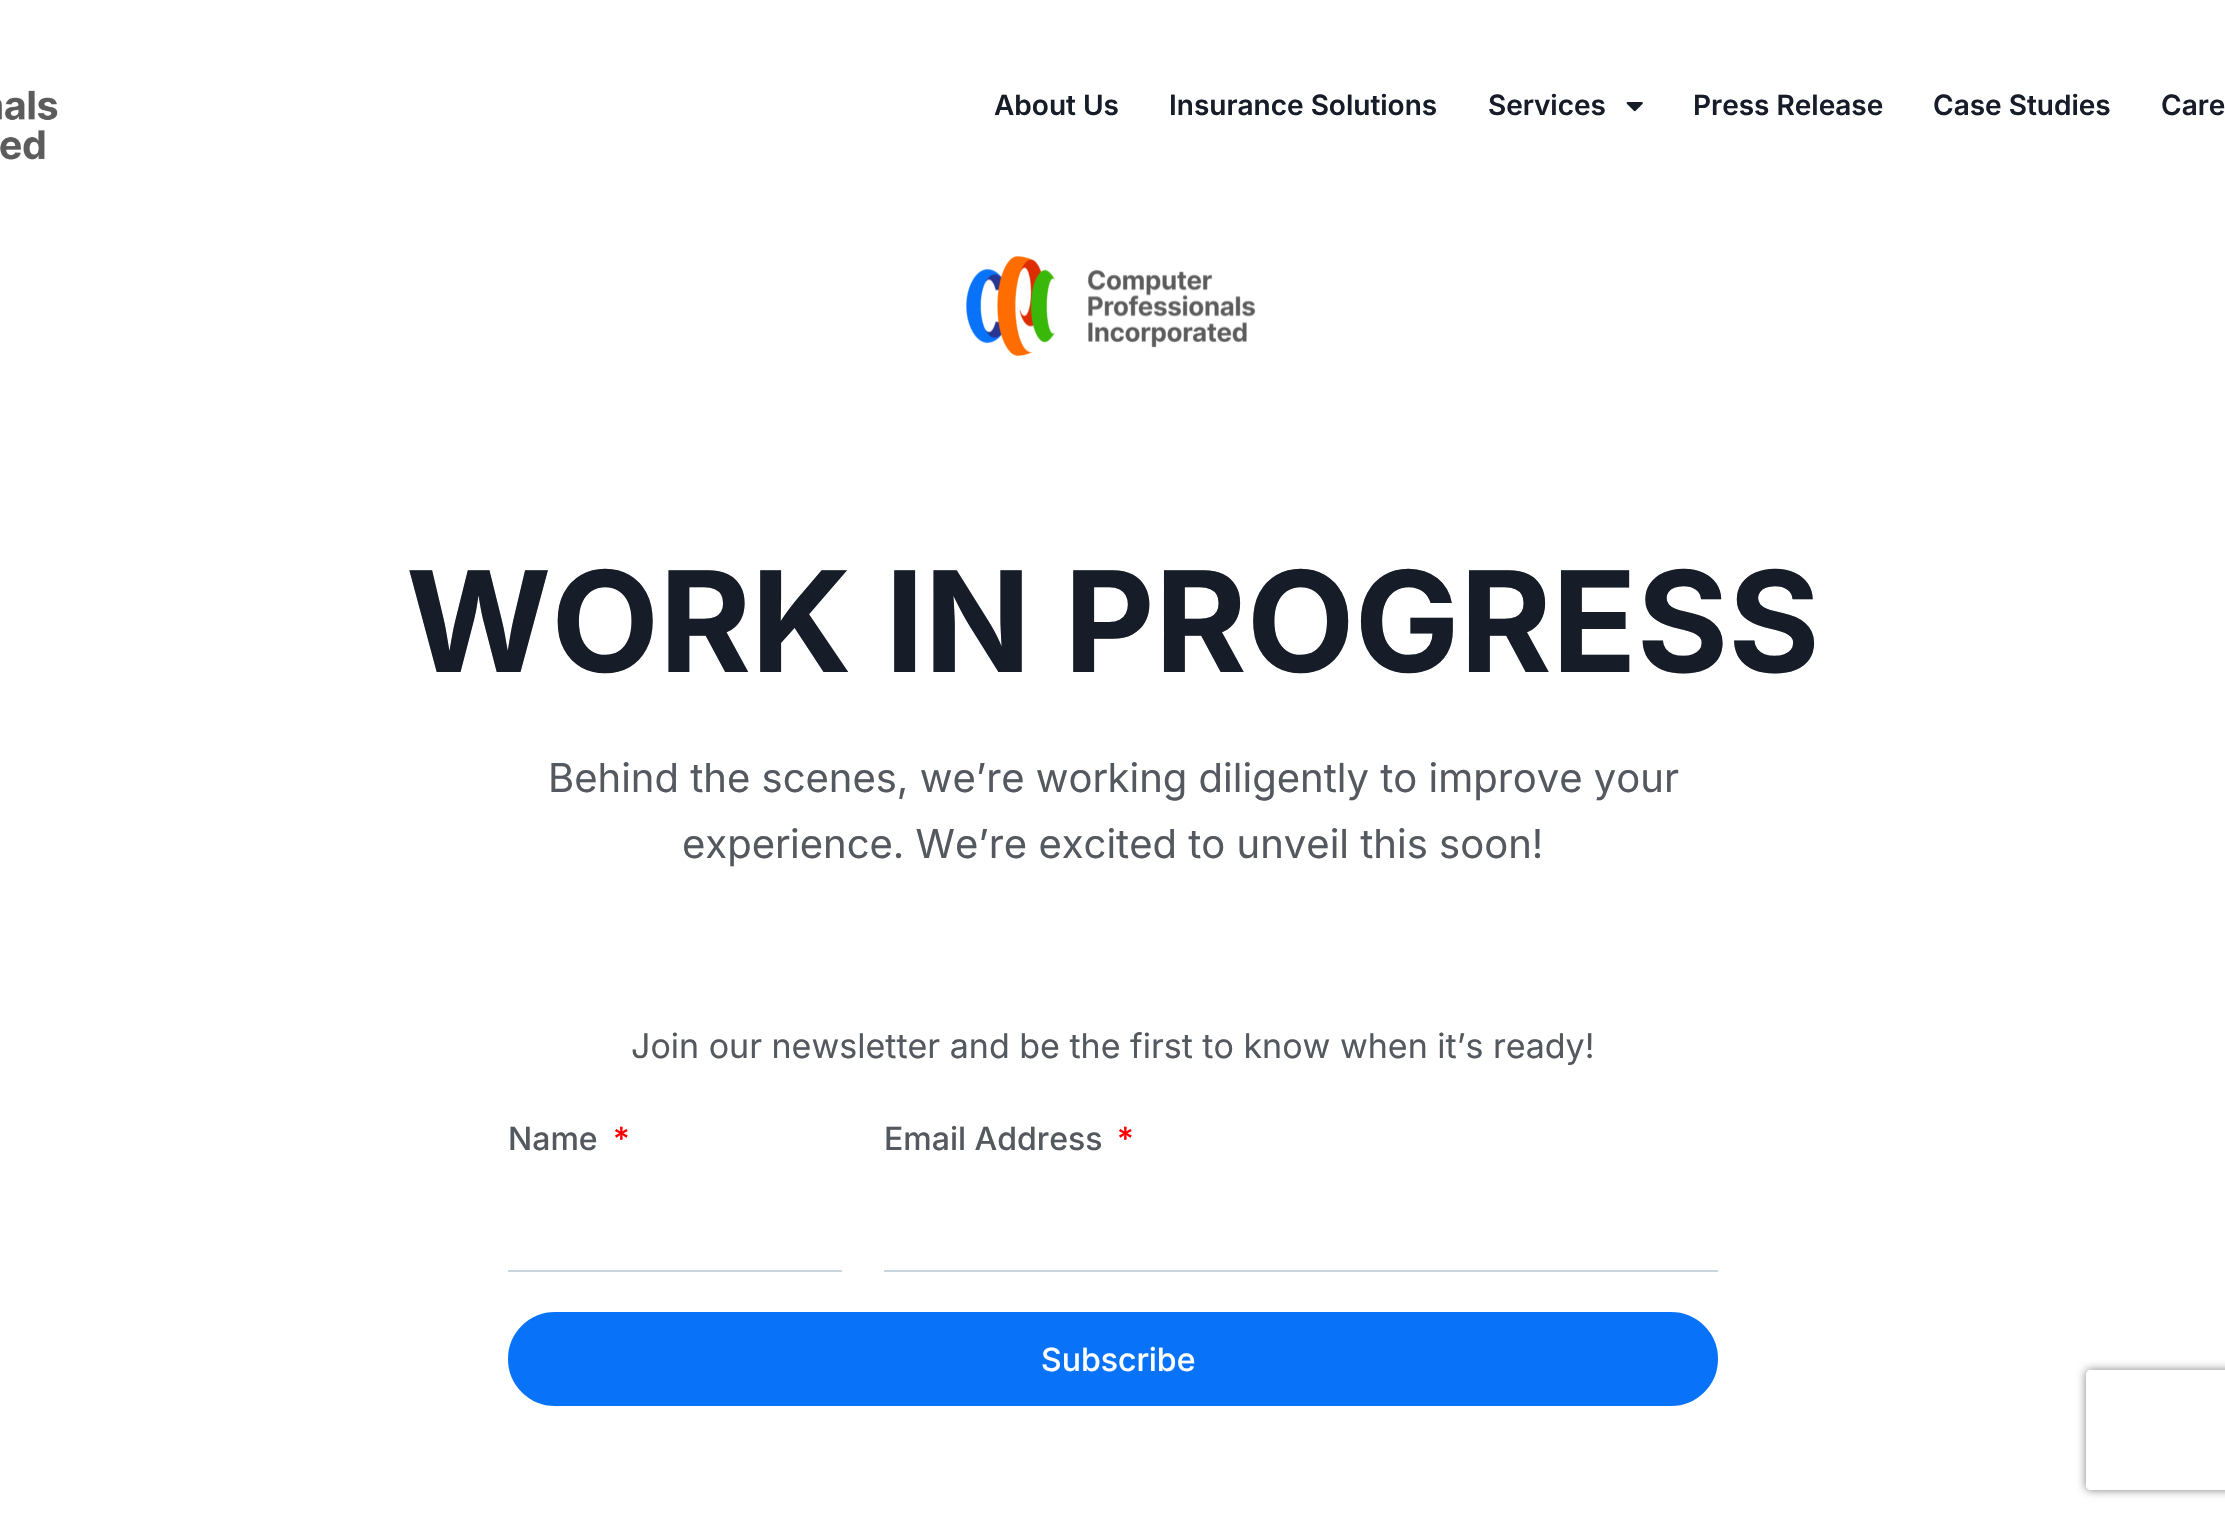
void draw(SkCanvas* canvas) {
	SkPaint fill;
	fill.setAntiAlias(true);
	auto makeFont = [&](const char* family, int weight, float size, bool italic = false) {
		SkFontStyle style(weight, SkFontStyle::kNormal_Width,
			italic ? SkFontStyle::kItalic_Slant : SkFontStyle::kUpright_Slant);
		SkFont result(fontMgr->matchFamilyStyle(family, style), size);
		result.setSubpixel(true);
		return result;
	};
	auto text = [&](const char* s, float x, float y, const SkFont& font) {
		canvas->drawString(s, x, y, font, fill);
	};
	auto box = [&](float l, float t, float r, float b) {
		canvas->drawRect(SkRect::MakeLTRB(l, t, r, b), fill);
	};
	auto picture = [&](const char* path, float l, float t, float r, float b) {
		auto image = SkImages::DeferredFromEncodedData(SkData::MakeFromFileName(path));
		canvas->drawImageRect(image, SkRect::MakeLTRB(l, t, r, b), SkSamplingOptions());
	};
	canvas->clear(0xFFFFFFFF);
	picture("image0.png", 0, 90, 58, 160);
	picture("image1.png", 1626, 102, 1643, 112);
	picture("image2.png", 966, 255, 1256, 357);
	fill.setColor(0xFFC8D5DC);
	box(508, 1270, 842, 1272);
	box(884, 1270, 1718, 1272);
	fill.setColor(0xFF0872F9);
	canvas->drawRoundRect(SkRect::MakeLTRB(509, 1313, 1717, 1405), 46, 46, fill);
	fill.setStyle(SkPaint::kStroke_Style);
	fill.setStrokeWidth(2);
	canvas->drawRoundRect(SkRect::MakeLTRB(509, 1313, 1717, 1405), 46, 46, fill);
	canvas->save();
	canvas->clipPath(SkPathBuilder(SkPathFillType::kEvenOdd).moveTo(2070, 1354).lineTo(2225, 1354).lineTo(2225, 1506).lineTo(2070, 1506).close().moveTo(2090, 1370).lineTo(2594, 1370).cubicTo(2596, 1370, 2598, 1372, 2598, 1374).lineTo(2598, 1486).cubicTo(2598, 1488, 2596, 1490, 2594, 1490).lineTo(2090, 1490).cubicTo(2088, 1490, 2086, 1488, 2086, 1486).lineTo(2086, 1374).cubicTo(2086, 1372, 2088, 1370, 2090, 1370).close().detach(), true);
	fill.setStyle(SkPaint::kFill_Style);
	fill.setColor(0xFF808080);
	fill.setMaskFilter(SkMaskFilter::MakeBlur(kNormal_SkBlurStyle, 5));
	canvas->drawRoundRect(SkRect::MakeLTRB(2086, 1370, 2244, 1490), 4, 4, fill);
	fill.setMaskFilter(nullptr);
	canvas->restore();
	auto font1 = makeFont("Inter", 600, 28);
	fill.setColor(0xFF161C28);
	text("About Us", 994, 115, font1);
	text("Insurance Solutions", 1169, 115, font1);
	text("Services", 1488, 115, font1);
	text("Press Release", 1693, 115, font1);
	text("Case Studies", 1933, 115, font1);
	text("Care", 2161, 115, font1);
	auto font2 = makeFont("Inter", 700, 140);
	text("WORK IN PROGRESS", 406, 672, font2);
	auto font3 = makeFont("Inter", 400, 40);
	fill.setColor(0xFF54595F);
	text("Behind the scenes, we’re working diligently to improve your", 548, 792, font3);
	text("experience. We’re excited to unveil this soon!", 682, 858, font3);
	auto font4 = makeFont("Inter", 400, 34);
	text("Join our newsletter and be the first to know when it’s ready!", 631, 1058, font4);
	auto font5 = makeFont("Inter", 500, 32);
	text("Name", 508, 1150, font5);
	fill.setColor(0xFFFF0000);
	text("*", 613, 1150, font5);
	fill.setColor(0xFF54595F);
	text("Email Address", 884, 1150, font5);
	fill.setColor(0xFFFF0000);
	text("*", 1117, 1150, font5);
	fill.setColor(0xFFFFFFFF);
	text("Subscribe", 1041, 1371, font5);
}
